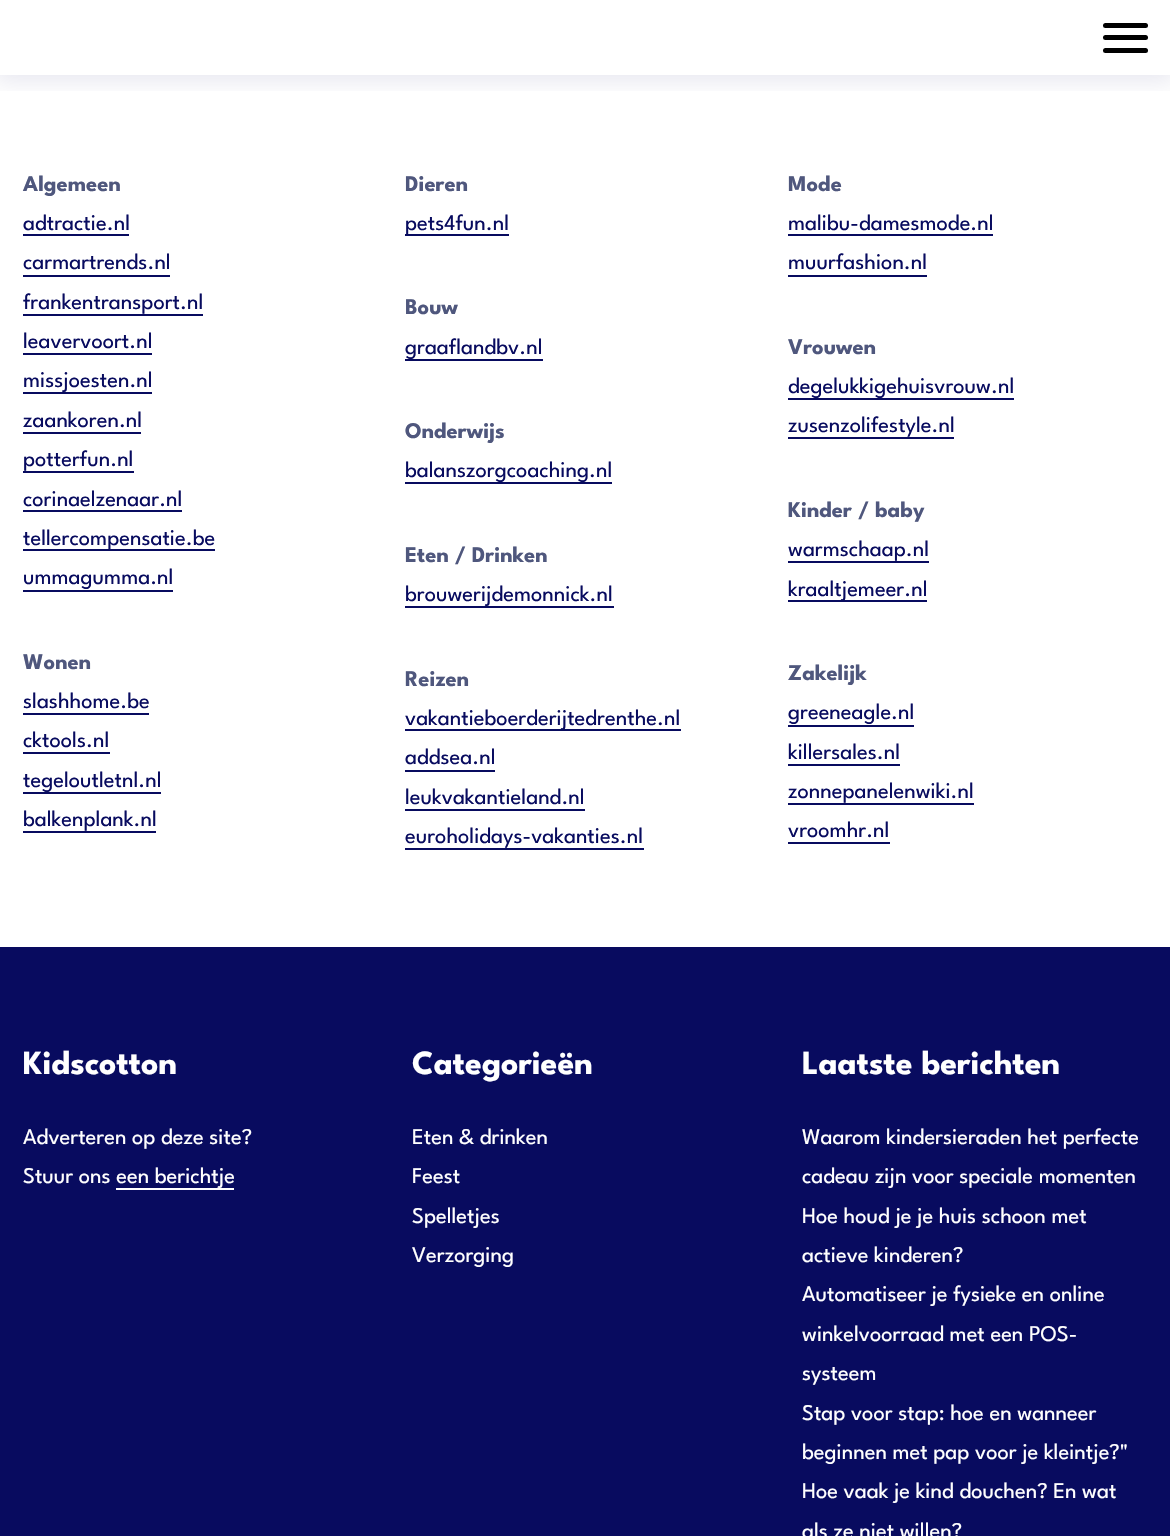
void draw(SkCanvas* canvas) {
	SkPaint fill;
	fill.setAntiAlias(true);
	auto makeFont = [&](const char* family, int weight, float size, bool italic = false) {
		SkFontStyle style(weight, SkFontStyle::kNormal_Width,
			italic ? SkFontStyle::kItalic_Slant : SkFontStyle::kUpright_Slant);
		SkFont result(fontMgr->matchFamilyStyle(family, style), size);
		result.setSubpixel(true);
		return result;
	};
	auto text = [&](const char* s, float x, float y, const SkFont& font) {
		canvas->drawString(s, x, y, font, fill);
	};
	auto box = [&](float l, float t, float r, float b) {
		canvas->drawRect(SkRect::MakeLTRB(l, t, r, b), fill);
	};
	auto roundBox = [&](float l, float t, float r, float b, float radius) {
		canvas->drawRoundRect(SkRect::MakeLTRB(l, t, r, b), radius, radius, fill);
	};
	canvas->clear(0xFFFFFFFF);
	canvas->save();
	canvas->clipRect(SkRect::MakeLTRB(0, 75, 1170, 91));
	fill.setColor(0x1A080B5F);
	fill.setMaskFilter(SkMaskFilter::MakeBlur(kNormal_SkBlurStyle, 12));
	canvas->drawRect(SkRect::MakeLTRB(-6, -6, 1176, 81), fill);
	fill.setMaskFilter(nullptr);
	canvas->restore();
	fill.setColor(0xFF000000);
	roundBox(1103, 23, 1148, 28, 2.5f);
	roundBox(1103, 35, 1148, 40, 2.5f);
	roundBox(1103, 48, 1148, 53, 2.5f);
	fill.setColor(0xFF080B5F);
	box(23, 234, 129, 236);
	box(23, 275, 170, 277);
	box(23, 314, 203, 316);
	box(23, 353, 152, 355);
	box(23, 392, 152, 394);
	box(23, 432, 141, 434);
	box(23, 471, 134, 473);
	box(23, 510, 182, 512);
	box(23, 549, 215, 551);
	box(23, 590, 173, 592);
	box(405, 234, 509, 236);
	box(788, 234, 993, 236);
	box(788, 275, 927, 277);
	box(405, 359, 543, 361);
	box(788, 398, 1014, 400);
	box(788, 437, 954, 439);
	box(405, 482, 612, 484);
	box(405, 606, 614, 608);
	box(788, 561, 929, 563);
	box(788, 600, 927, 602);
	box(23, 713, 149, 715);
	box(23, 752, 110, 754);
	box(23, 792, 161, 794);
	box(23, 831, 156, 833);
	box(405, 729, 681, 731);
	box(405, 770, 495, 772);
	box(405, 809, 585, 811);
	box(405, 848, 644, 850);
	box(788, 725, 914, 727);
	box(788, 764, 900, 766);
	box(788, 803, 974, 805);
	box(788, 842, 890, 844);
	box(0, 947, 1170, 1536);
	fill.setColor(0xFFFFFFFF);
	box(116, 1188, 234, 1190);
	auto font1 = makeFont("League Spartan", 700, 22.5f);
	fill.setColor(0xFF4F577D);
	text("Algemeen", 23, 191, font1);
	auto font2 = makeFont("League Spartan", 400, 22.5f);
	fill.setColor(0xFF080B5F);
	text("adtractie.nl", 23, 230, font2);
	text("carmartrends.nl", 23, 269, font2);
	text("frankentransport.nl", 23, 309, font2);
	text("leavervoort.nl", 23, 348, font2);
	text("missjoesten.nl", 23, 387, font2);
	text("zaankoren.nl", 23, 427, font2);
	text("potterfun.nl", 23, 466, font2);
	text("corinaelzenaar.nl", 23, 506, font2);
	text("tellercompensatie.be", 23, 545, font2);
	text("ummagumma.nl", 23, 584, font2);
	fill.setColor(0xFF4F577D);
	text("Dieren", 405, 191, font1);
	fill.setColor(0xFF080B5F);
	text("pets4fun.nl", 405, 230, font2);
	fill.setColor(0xFF4F577D);
	text("Mode", 788, 191, font1);
	fill.setColor(0xFF080B5F);
	text("malibu-damesmode.nl", 788, 230, font2);
	text("muurfashion.nl", 788, 269, font2);
	fill.setColor(0xFF4F577D);
	text("Bouw", 405, 314, font1);
	fill.setColor(0xFF080B5F);
	text("graaflandbv.nl", 405, 354, font2);
	fill.setColor(0xFF4F577D);
	text("Vrouwen", 788, 354, font1);
	fill.setColor(0xFF080B5F);
	text("degelukkigehuisvrouw.nl", 788, 393, font2);
	text("zusenzolifestyle.nl", 788, 432, font2);
	fill.setColor(0xFF4F577D);
	text("Onderwijs", 405, 438, font1);
	fill.setColor(0xFF080B5F);
	text("balanszorgcoaching.nl", 405, 477, font2);
	fill.setColor(0xFF4F577D);
	text("Eten / Drinken", 405, 562, font1);
	fill.setColor(0xFF080B5F);
	text("brouwerijdemonnick.nl", 405, 601, font2);
	fill.setColor(0xFF4F577D);
	text("Kinder / baby", 788, 517, font1);
	fill.setColor(0xFF080B5F);
	text("warmschaap.nl", 788, 556, font2);
	text("kraaltjemeer.nl", 788, 596, font2);
	fill.setColor(0xFF4F577D);
	text("Wonen", 23, 669, font1);
	fill.setColor(0xFF080B5F);
	text("slashhome.be", 23, 708, font2);
	text("cktools.nl", 23, 747, font2);
	text("tegeloutletnl.nl", 23, 787, font2);
	text("balkenplank.nl", 23, 826, font2);
	fill.setColor(0xFF4F577D);
	text("Reizen", 405, 686, font1);
	fill.setColor(0xFF080B5F);
	text("vakantieboerderijtedrenthe.nl", 405, 725, font2);
	text("addsea.nl", 405, 764, font2);
	text("leukvakantieland.nl", 405, 804, font2);
	text("euroholidays-vakanties.nl", 405, 843, font2);
	fill.setColor(0xFF4F577D);
	text("Zakelijk", 788, 680, font1);
	fill.setColor(0xFF080B5F);
	text("greeneagle.nl", 788, 719, font2);
	text("killersales.nl", 788, 759, font2);
	text("zonnepanelenwiki.nl", 788, 798, font2);
	text("vroomhr.nl", 788, 837, font2);
	auto font3 = makeFont("League Spartan", 700, 33.75f);
	fill.setColor(0xFFFFFFFF);
	text("Kidscotton", 23, 1074, font3);
	text("Adverteren op deze site?", 23, 1144, font2);
	text("Stuur ons een berichtje", 23, 1183, font2);
	text("Categorieën", 412, 1074, font3);
	text("Eten & drinken", 412, 1144, font2);
	text("Feest", 412, 1183, font2);
	text("Spelletjes", 412, 1223, font2);
	text("Verzorging", 412, 1262, font2);
	text("Laatste berichten", 802, 1074, font3);
	text("Waarom kindersieraden het perfecte", 802, 1144, font2);
	text("cadeau zijn voor speciale momenten", 802, 1183, font2);
	text("Hoe houd je je huis schoon met", 802, 1223, font2);
	text("actieve kinderen?", 802, 1262, font2);
	text("Automatiseer je fysieke en online", 802, 1301, font2);
	text("winkelvoorraad met een POS-", 802, 1341, font2);
	text("systeem", 802, 1380, font2);
	text("Stap voor stap: hoe en wanneer", 802, 1420, font2);
	text("beginnen met pap voor je kleintje?\"", 802, 1459, font2);
	text("Hoe vaak je kind douchen? En wat", 802, 1498, font2);
	text("als ze niet willen?", 802, 1538, font2);
}
